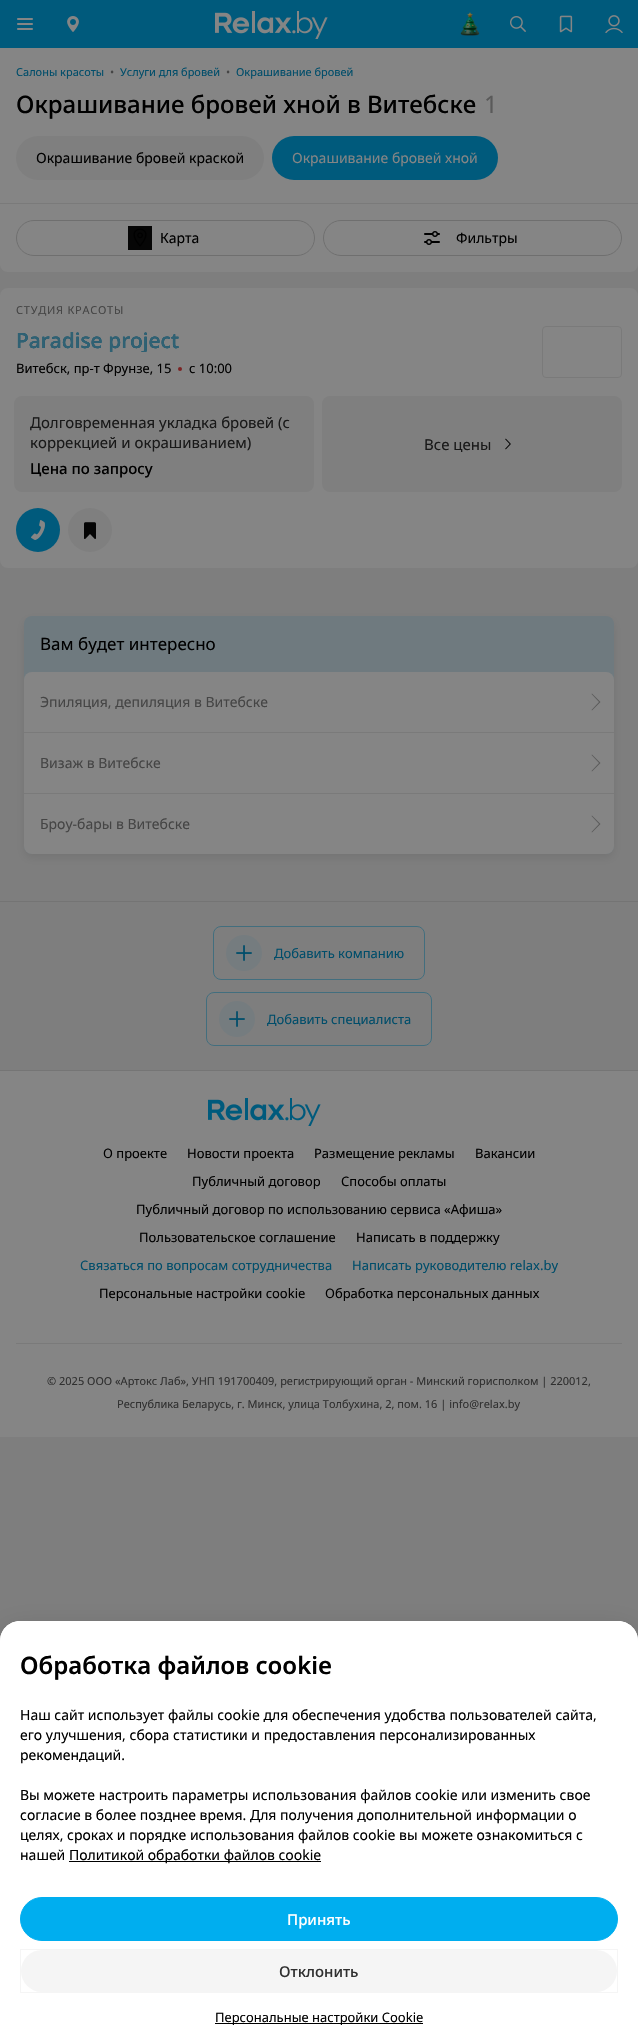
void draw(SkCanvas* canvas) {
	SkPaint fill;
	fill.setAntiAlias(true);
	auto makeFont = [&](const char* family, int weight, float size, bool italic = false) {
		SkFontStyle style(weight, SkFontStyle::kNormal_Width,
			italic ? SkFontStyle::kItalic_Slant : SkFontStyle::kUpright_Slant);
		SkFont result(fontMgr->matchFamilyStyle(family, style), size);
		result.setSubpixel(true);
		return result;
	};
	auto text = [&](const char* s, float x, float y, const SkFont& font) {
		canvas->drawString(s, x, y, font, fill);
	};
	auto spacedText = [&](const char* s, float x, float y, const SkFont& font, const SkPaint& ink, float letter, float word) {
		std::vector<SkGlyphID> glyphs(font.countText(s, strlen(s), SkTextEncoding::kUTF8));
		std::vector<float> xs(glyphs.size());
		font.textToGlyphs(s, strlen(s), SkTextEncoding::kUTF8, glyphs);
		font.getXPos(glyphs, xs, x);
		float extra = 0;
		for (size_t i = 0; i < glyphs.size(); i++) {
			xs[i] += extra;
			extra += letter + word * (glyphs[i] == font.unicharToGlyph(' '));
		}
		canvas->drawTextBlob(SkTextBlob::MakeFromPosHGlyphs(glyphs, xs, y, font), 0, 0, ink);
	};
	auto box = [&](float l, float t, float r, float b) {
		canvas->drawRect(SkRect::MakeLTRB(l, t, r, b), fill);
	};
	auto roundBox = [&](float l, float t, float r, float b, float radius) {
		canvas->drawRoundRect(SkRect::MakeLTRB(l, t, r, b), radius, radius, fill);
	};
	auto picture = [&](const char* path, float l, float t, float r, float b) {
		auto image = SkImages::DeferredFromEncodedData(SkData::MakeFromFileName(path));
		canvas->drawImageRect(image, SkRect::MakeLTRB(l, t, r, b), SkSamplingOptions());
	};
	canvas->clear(0xFF7E7E7E);
	fill.setColor(0xFF005A7C);
	box(0, 0, 638, 48);
	picture("image0.png", 17, 18, 33, 30);
	picture("image1.png", 67, 16, 79, 32);
	picture("image2.png", 215, 11, 328, 39);
	picture("image3.png", 460, 12, 480, 36);
	picture("image4.png", 510, 16, 526, 32);
	picture("image5.png", 559, 15, 573, 33);
	picture("image6.png", 605, 15, 623, 33);
	fill.setColor(0xFF858585);
	box(0, 48, 638, 203);
	fill.setColor(0xFF7F7F7F);
	roundBox(16, 136, 264, 180, 22);
	fill.setColor(0xFF005A7C);
	roundBox(272, 136, 498, 180, 22);
	fill.setColor(0xFF7A7A7A);
	box(0, 203, 638, 204);
	fill.setColor(0xFF858585);
	canvas->drawPath(SkPathBuilder().moveTo(0, 204).lineTo(638, 204).lineTo(638, 264).cubicTo(638, 268.5f, 634.5f, 272, 630, 272).lineTo(8, 272).cubicTo(3.5f, 272, 0, 268.5f, 0, 264).close().detach(), fill);
	fill.setStyle(SkPaint::kStroke_Style);
	fill.setStrokeWidth(1);
	fill.setColor(0xFF6F6F6F);
	canvas->drawRoundRect(SkRect::MakeLTRB(16.5f, 220.5f, 314.5f, 255.5f), 17.5f, 17.5f, fill);
	picture("image7.png", 128, 226, 152, 250);
	canvas->drawRoundRect(SkRect::MakeLTRB(323.5f, 220.5f, 621.5f, 255.5f), 17.5f, 17.5f, fill);
	picture("image8.png", 424, 231, 440, 245);
	fill.setStyle(SkPaint::kFill_Style);
	fill.setColor(0xFF858585);
	roundBox(0, 288, 638, 568, 8);
	fill.setStyle(SkPaint::kStroke_Style);
	fill.setColor(0xFF7A7A7A);
	canvas->drawRoundRect(SkRect::MakeLTRB(542.5f, 326.5f, 621.5f, 377.5f), 3.5f, 3.5f, fill);
	fill.setStyle(SkPaint::kFill_Style);
	fill.setColor(0xFF7B2323);
	canvas->drawCircle(180, 369, 2, fill);
	fill.setColor(0xFF7F7F7F);
	roundBox(14, 396, 314, 492, 8);
	roundBox(322, 396, 622, 492, 8);
	picture("image9.png", 505, 438, 511, 450);
	fill.setColor(0xFF005A7C);
	canvas->drawCircle(38, 530, 22, fill);
	picture("image10.png", 31, 520, 45, 540);
	fill.setColor(0xFF7F7F7F);
	canvas->drawCircle(90, 530, 22, fill);
	picture("image11.png", 84, 522, 96, 539);
	fill.setColor(0x14000000);
	fill.setMaskFilter(SkMaskFilter::MakeBlur(kNormal_SkBlurStyle, 4));
	canvas->drawRoundRect(SkRect::MakeLTRB(24, 620, 614, 858), 8, 8, fill);
	fill.setMaskFilter(nullptr);
	fill.setColor(0xFF6F7A7F);
	roundBox(24, 616, 614, 854, 8);
	fill.setColor(0xFF858585);
	roundBox(24, 672, 614, 854, 8);
	fill.setColor(0xFF7A7A7A);
	box(24, 732, 614, 733);
	fill.setColor(0xFF5A5A5A);
	canvas->drawPath(SkPathBuilder().moveTo(592, 693.5f).lineTo(600.5f, 702).lineTo(599, 702).lineTo(591.5f, 694).close().moveTo(600.5f, 702).lineTo(592, 710.5f).lineTo(591.5f, 710).lineTo(599, 702).close().detach(), fill);
	fill.setColor(0xFF7A7A7A);
	box(24, 793, 614, 794);
	fill.setColor(0xFF5A5A5A);
	canvas->drawPath(SkPathBuilder().moveTo(592, 754.5f).lineTo(600.5f, 763).lineTo(599, 763).lineTo(591.5f, 755).close().moveTo(600.5f, 763).lineTo(592, 771.5f).lineTo(591.5f, 771).lineTo(599, 763).close().detach(), fill);
	canvas->drawPath(SkPathBuilder().moveTo(592, 815.5f).lineTo(600.5f, 824).lineTo(599, 824).lineTo(591.5f, 816).close().moveTo(600.5f, 824).lineTo(592, 832.5f).lineTo(591.5f, 832).lineTo(599, 824).close().detach(), fill);
	fill.setColor(0xFF747474);
	box(0, 901, 638, 902);
	fill.setColor(0xFF858585);
	box(0, 1071, 638, 1437);
	fill.setColor(0xFF757575);
	box(0, 1070, 638, 1071);
	fill.setStyle(SkPaint::kStroke_Style);
	fill.setColor(0xFF426E7E);
	canvas->drawRoundRect(SkRect::MakeLTRB(213.5f, 926.5f, 424.5f, 979.5f), 7.5f, 7.5f, fill);
	fill.setStyle(SkPaint::kFill_Style);
	fill.setColor(0xFF757C7F);
	canvas->drawCircle(244, 953, 18, fill);
	picture("image12.png", 236, 945, 252, 961);
	fill.setStyle(SkPaint::kStroke_Style);
	fill.setColor(0xFF426E7E);
	canvas->drawRoundRect(SkRect::MakeLTRB(206.5f, 992.5f, 431.5f, 1045.5f), 7.5f, 7.5f, fill);
	fill.setStyle(SkPaint::kFill_Style);
	fill.setColor(0xFF757C7F);
	canvas->drawCircle(237, 1019, 18, fill);
	picture("image12.png", 229, 1011, 245, 1027);
	picture("image13.png", 208, 1098, 321, 1126);
	fill.setColor(0xFF7A7A7A);
	box(16, 1343, 622, 1344);
	fill.setColor(0x29000000);
	fill.setMaskFilter(SkMaskFilter::MakeBlur(kNormal_SkBlurStyle, 15));
	canvas->drawRoundRect(SkRect::MakeLTRB(0, 1631, 638, 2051), 20, 20, fill);
	fill.setMaskFilter(nullptr);
	fill.setColor(0xFFFFFFFF);
	canvas->drawPath(SkPathBuilder().moveTo(20, 1621).lineTo(618, 1621).cubicTo(629, 1621, 638, 1630, 638, 1641).lineTo(638, 2041).lineTo(0, 2041).lineTo(0, 1641).cubicTo(0, 1630, 9, 1621, 20, 1621).close().detach(), fill);
	{
		const SkColor colors[] = {0x3DFFFFFF, 0xFFFFFFFF, 0xFFFFFFFF};
		const float stops[] = {0, 0.45f, 1};
		const SkPoint ends[] = {{319, 1649}, {319, 1621}};
		fill.setShader(SkGradientShader::MakeLinear(ends, colors, stops, 3, SkTileMode::kClamp));
		fill.setAlpha(255);
	}
	canvas->drawPath(SkPathBuilder().moveTo(20, 1621).lineTo(618, 1621).cubicTo(629, 1621, 638, 1630, 638, 1641).lineTo(638, 1649).lineTo(0, 1649).lineTo(0, 1641).cubicTo(0, 1630, 9, 1621, 20, 1621).close().detach(), fill);
	fill.setShader(nullptr);
	fill.setColor(0xFF000000);
	box(69, 1861, 321, 1862);
	fill.setColor(0xFF00AEEF);
	canvas->drawRoundRect(SkRect::MakeLTRB(20.5f, 1897.5f, 617.5f, 1940.5f), 21.5f, 21.5f, fill);
	fill.setStyle(SkPaint::kStroke_Style);
	canvas->drawRoundRect(SkRect::MakeLTRB(20.5f, 1897.5f, 617.5f, 1940.5f), 21.5f, 21.5f, fill);
	fill.setStyle(SkPaint::kFill_Style);
	fill.setColor(0xFFF5F5F5);
	roundBox(21, 1950, 617, 1992, 21);
	fill.setStyle(SkPaint::kStroke_Style);
	fill.setColor(0x0A000000);
	canvas->drawRect(SkRect::MakeLTRB(20.5f, 1949.5f, 617.5f, 1992.5f), fill);
	fill.setStyle(SkPaint::kFill_Style);
	fill.setColor(0xFF000000);
	box(215, 2023, 423, 2024);
	auto font1 = makeFont("Noto Sans", 400, 11);
	fill.setColor(0xFF004D6A);
	text("Салоны красоты", 16, 76, font1);
	fill.setColor(0xFF454545);
	text("•", 110, 76, font1);
	fill.setColor(0xFF004D6A);
	text("Услуги для бровей", 120, 76, font1);
	fill.setColor(0xFF454545);
	text("•", 226, 76, font1);
	fill.setColor(0xFF004D6A);
	text("Окрашивание бровей", 236, 76, font1);
	auto font2 = makeFont("Noto Sans", 500, 24);
	fill.setColor(0xFF000000);
	text("Окрашивание бровей хной в Витебске", 16, 113, font2);
	auto font3 = makeFont("Noto Sans", 400, 24);
	fill.setColor(0xFF5A5A5A);
	text("1", 484, 113, font3);
	auto font4 = makeFont("Noto Sans", 400, 14);
	fill.setColor(0xFF000000);
	text("Окрашивание бровей краской", 36, 163, font4);
	fill.setColor(0xFF858585);
	text("Окрашивание бровей хной", 292, 163, font4);
	fill.setColor(0xFF000000);
	text("Карта", 160, 243, font4);
	text("Фильтры", 456, 243, font4);
	fill.setColor(0xFF454545);
	spacedText("СТУДИЯ КРАСОТЫ", 16, 314, font1, fill, 0.75f, 0);
	canvas->save();
	canvas->clipRect(SkRect::MakeLTRB(16, 328, 179, 352));
	auto font5 = makeFont("Noto Sans", 500, 21);
	fill.setColor(0xFF004D6A);
	text("Paradise project", 16, 348, font5);
	fill.setColor(0xFF306173);
	text("Paradise project", 16, 348, font5);
	canvas->restore();
	auto font6 = makeFont("Noto Sans", 400, 13);
	fill.setColor(0xFF000000);
	text("Витебск, пр-т Фрунзе, 15", 16, 373, font6);
	text("с 10:00", 189, 373, font6);
	auto font7 = makeFont("Noto Sans", 400, 15);
	fill.setColor(0xFF191919);
	text("Долговременная укладка бровей (с", 30, 428, font7);
	text("коррекцией и окрашиванием)", 30, 448, font7);
	auto font8 = makeFont("Noto Sans", 500, 15);
	fill.setColor(0xFF000000);
	text("Цена по запросу", 30, 474, font8);
	fill.setColor(0xFF191919);
	text("Все цены", 424, 450, font7);
	auto font9 = makeFont("Noto Sans", 400, 17);
	fill.setColor(0xFF000000);
	text("Вам будет интересно", 40, 650, font9);
	fill.setColor(0xFF454545);
	text("Эпиляция, депиляция в Витебске", 40, 707, font4);
	text("Визаж в Витебске", 40, 768, font4);
	text("Броу-бары в Витебске", 40, 829, font4);
	fill.setColor(0xFF004D6A);
	text("Добавить компанию", 274, 958, font6);
	text("Добавить специалиста", 267, 1024, font6);
	fill.setColor(0xFF000000);
	text("О проекте", 103, 1158, font6);
	text("Новости проекта", 187, 1158, font6);
	text("Размещение рекламы", 314, 1158, font6);
	text("Вакансии", 475, 1158, font6);
	text("Публичный договор", 192, 1186, font6);
	text("Способы оплаты", 341, 1186, font6);
	text("Публичный договор по использованию сервиса «Афиша»", 136, 1214, font6);
	text("Пользовательское соглашение", 139, 1242, font6);
	text("Написать в поддержку", 356, 1242, font6);
	fill.setColor(0xFF004D6A);
	text("Связаться по вопросам сотрудничества", 80, 1270, font6);
	text("Написать руководителю relax.by", 352, 1270, font6);
	fill.setColor(0xFF000000);
	text("Персональные настройки cookie", 99, 1298, font6);
	text("Обработка персональных данных", 325, 1298, font6);
	fill.setColor(0xFF303030);
	text("© 2025 ООО «Артокс Лаб», УНП 191700409, регистрирующий орган - Минский горисполком | 220012,", 47, 1385, font1);
	text("Республика Беларусь, г. Минск, улица Толбухина, 2, пом. 16 | info@relax.by", 117, 1408, font1);
	auto font10 = makeFont("Noto Sans", 600, 24);
	fill.setColor(0xFF000000);
	text("Обработка файлов cookie", 20, 1674, font10);
	text("Наш сайт использует файлы cookie для обеспечения удобства пользователей сайта,", 20, 1720, font4);
	text("его улучшения, сбора статистики и предоставления персонализированных", 20, 1740, font4);
	text("рекомендаций.", 20, 1760, font4);
	text("Вы можете настроить параметры использования файлов cookie или изменить свое", 20, 1800, font4);
	text("согласие в более позднее время. Для получения дополнительной информации о", 20, 1820, font4);
	text("целях, сроках и порядке использования файлов cookie вы можете ознакомиться с", 20, 1840, font4);
	text("нашей", 20, 1860, font4);
	text("Политикой обработки файлов cookie", 69, 1860, font4);
	fill.setColor(0xFFFFFFFF);
	text("Принять", 287, 1925, font8);
	fill.setColor(0xFF303030);
	text("Отклонить", 279, 1977, font8);
	fill.setColor(0xFF000000);
	text("Персональные настройки Cookie", 215, 2022, font6);
}
